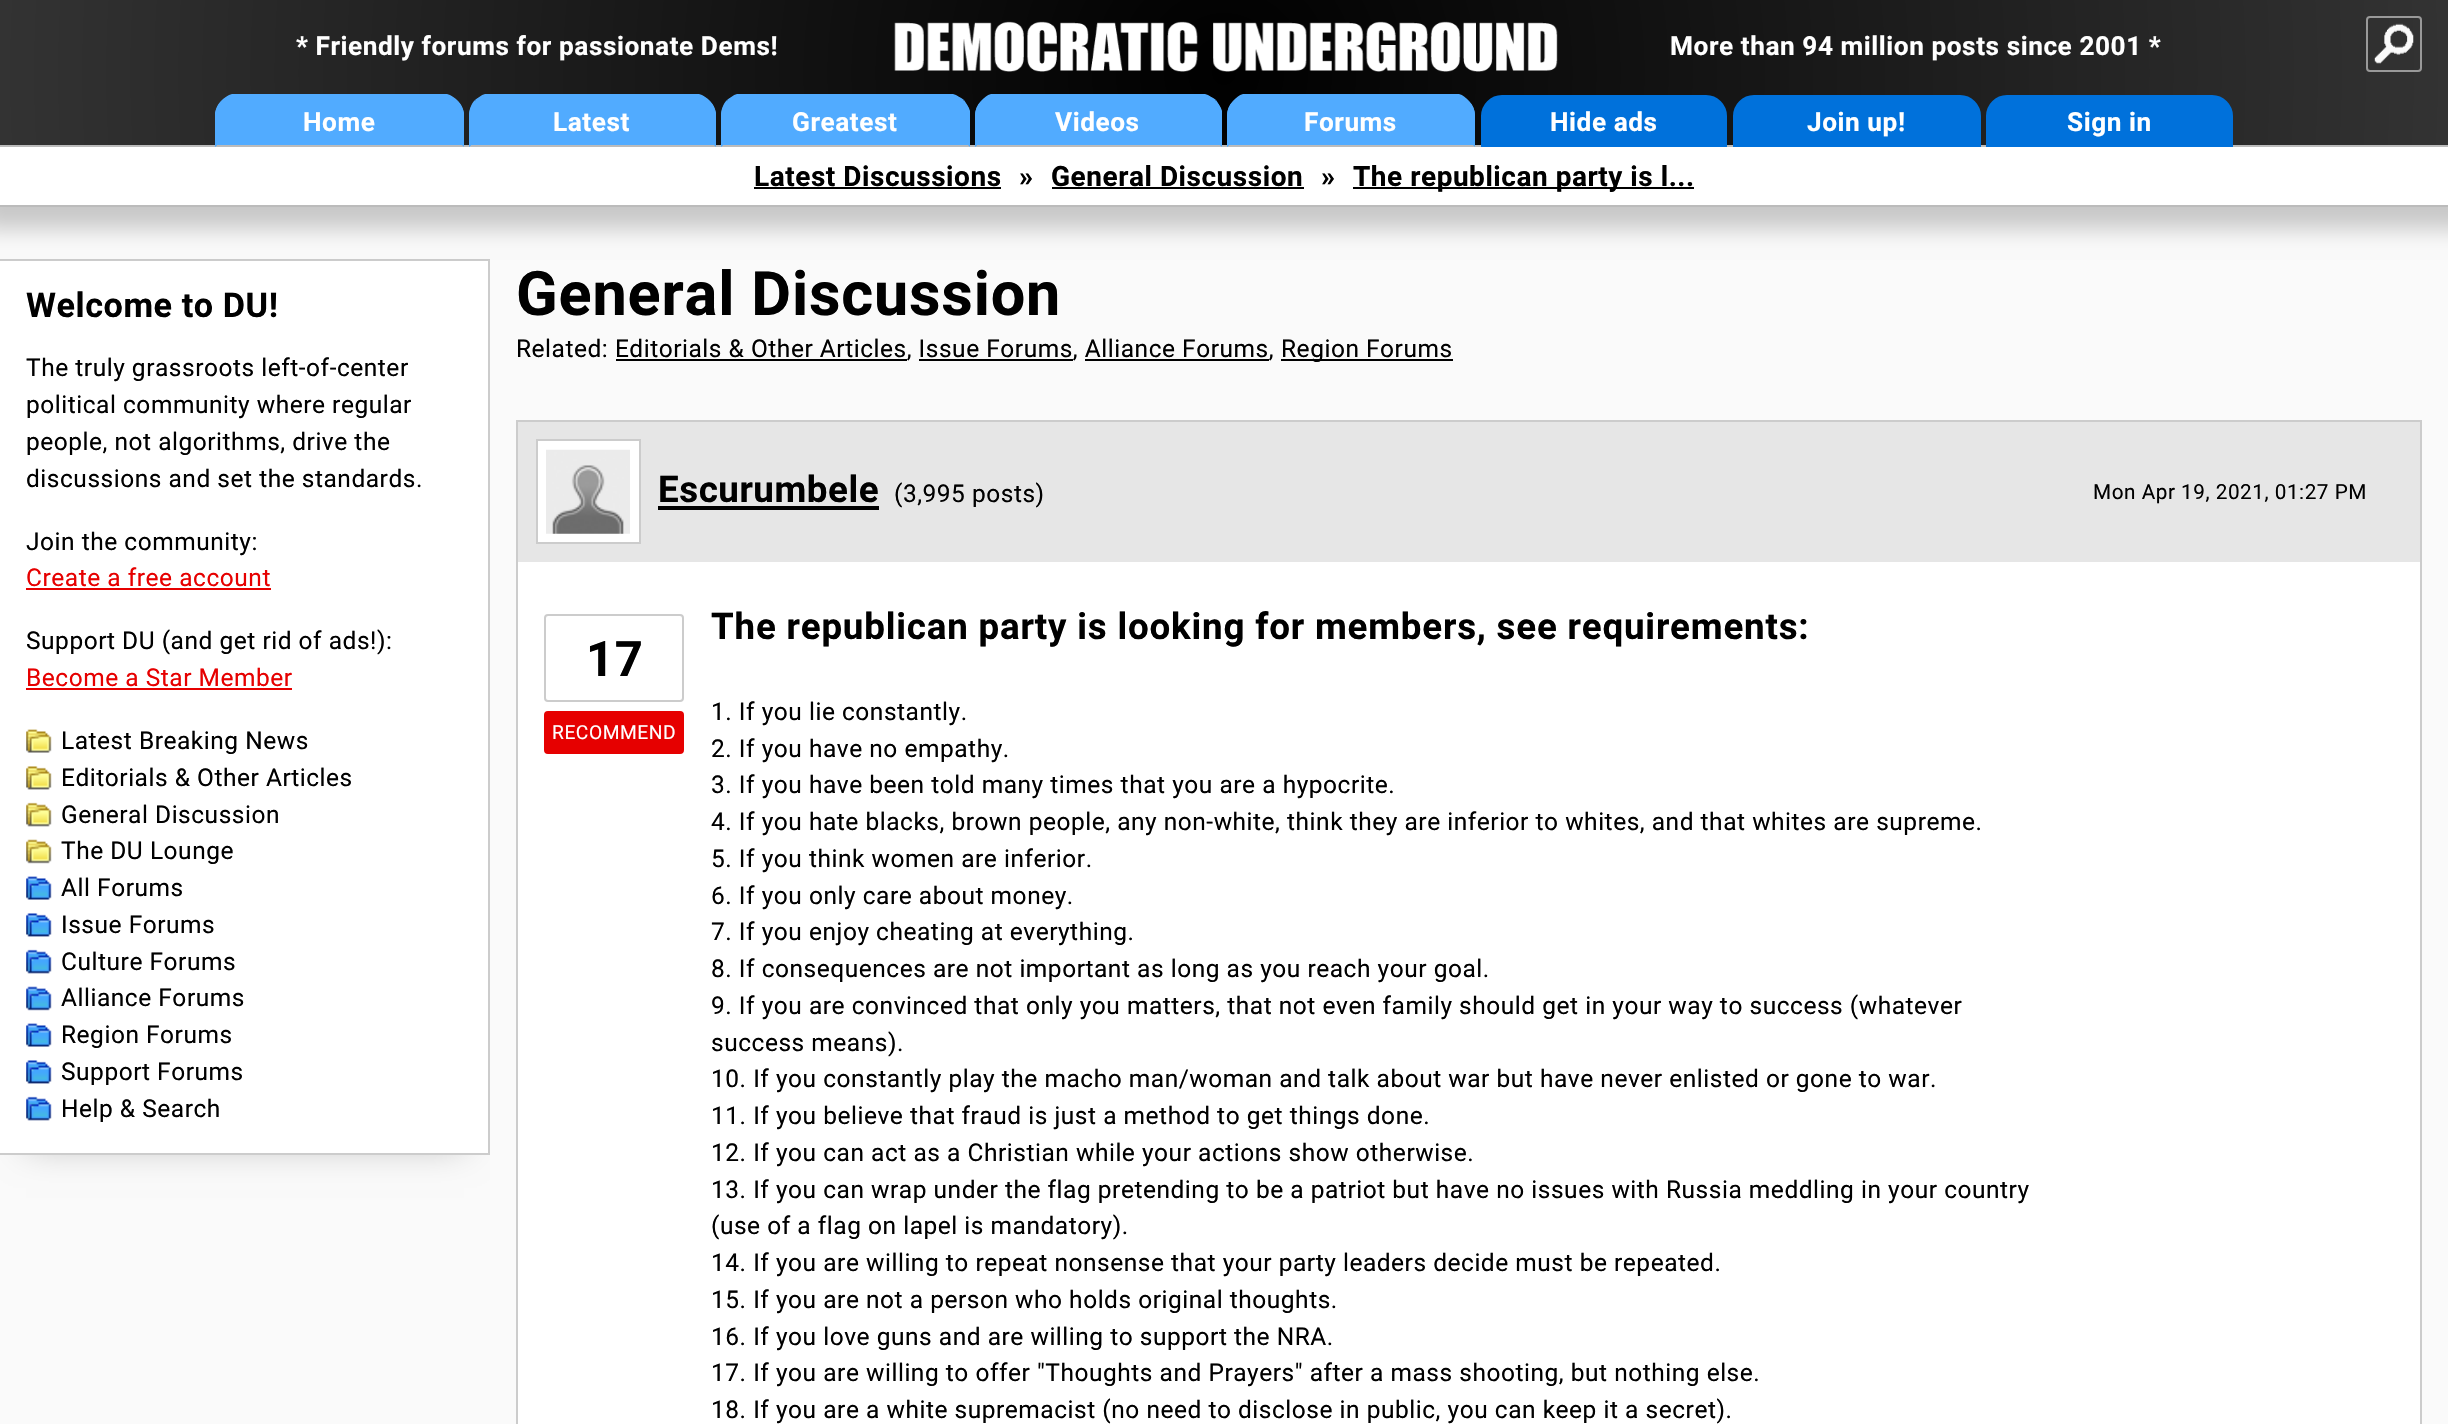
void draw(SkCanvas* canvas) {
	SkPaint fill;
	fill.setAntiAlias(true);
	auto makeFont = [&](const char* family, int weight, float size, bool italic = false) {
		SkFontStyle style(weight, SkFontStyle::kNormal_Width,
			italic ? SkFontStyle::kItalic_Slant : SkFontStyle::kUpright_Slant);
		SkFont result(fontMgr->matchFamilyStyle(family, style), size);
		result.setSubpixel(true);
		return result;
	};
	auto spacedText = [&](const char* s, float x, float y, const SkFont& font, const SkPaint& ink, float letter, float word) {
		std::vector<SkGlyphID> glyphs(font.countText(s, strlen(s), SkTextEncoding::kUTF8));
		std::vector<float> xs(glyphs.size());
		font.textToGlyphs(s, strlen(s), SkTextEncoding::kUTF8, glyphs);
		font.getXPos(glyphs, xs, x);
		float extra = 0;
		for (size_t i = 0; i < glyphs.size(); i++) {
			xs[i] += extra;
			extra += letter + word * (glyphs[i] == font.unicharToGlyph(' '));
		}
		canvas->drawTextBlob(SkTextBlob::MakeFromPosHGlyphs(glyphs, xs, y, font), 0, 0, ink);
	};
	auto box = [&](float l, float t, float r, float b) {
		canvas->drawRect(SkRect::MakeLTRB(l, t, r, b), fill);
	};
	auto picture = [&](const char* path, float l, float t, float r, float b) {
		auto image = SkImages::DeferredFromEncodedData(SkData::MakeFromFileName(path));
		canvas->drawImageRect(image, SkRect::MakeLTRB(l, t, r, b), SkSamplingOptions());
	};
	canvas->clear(0xFFFAFAFA);
	fill.setColor(0xFFCCCCCC);
	box(516, 420, 2422, 422);
	box(516, 420, 518, 1424);
	canvas->save();
	canvas->clipRect(SkRect::MakeLTRB(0, 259, 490, 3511));
	fill.setColor(0x40000000);
	fill.setMaskFilter(SkMaskFilter::MakeBlur(kNormal_SkBlurStyle, 17.5f));
	canvas->drawRect(SkRect::MakeLTRB(26, 303, 464, 1146), fill);
	fill.setMaskFilter(nullptr);
	canvas->restore();
	fill.setColor(0xFFFFFFFF);
	box(0, 261, 488, 1153);
	fill.setColor(0xFFCCCCCC);
	box(0, 259, 490, 261);
	box(488, 259, 490, 1155);
	fill.setColor(0x33000000);
	fill.setMaskFilter(SkMaskFilter::MakeBlur(kNormal_SkBlurStyle, 10.5f));
	canvas->drawRect(SkRect::MakeLTRB(-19, 126, 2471, 229), fill);
	fill.setMaskFilter(nullptr);
	{
		const SkColor colors[] = {0xFF000000, 0xFF333333};
		const float stops[] = {0, 1};
		fill.setShader(SkGradientShader::MakeRadial({1224, 73}, 1226, colors, stops, 2, SkTileMode::kClamp));
		fill.setAlpha(255);
	}
	box(0, 0, 2448, 145);
	picture("image0.png", 894, 21, 1558, 72);
	fill.setShader(nullptr);
	fill.setColor(0xFFBBBBBB);
	box(0, 145, 2448, 147);
	fill.setColor(0xFF51ABFF);
	canvas->drawPath(SkPathBuilder().moveTo(236, 95).lineTo(443, 95).cubicTo(454.5f, 95, 464, 104.5f, 464, 116).lineTo(464, 147).lineTo(215, 147).lineTo(215, 116).cubicTo(215, 104.5f, 224.5f, 95, 236, 95).close().detach(), fill);
	canvas->drawPath(SkPathBuilder().moveTo(236, 96).cubicTo(231, 96, 226, 98, 223, 102).lineTo(221, 101).cubicTo(224, 98, 228, 95, 232, 94).lineTo(447, 94).cubicTo(451, 95, 455, 98, 458, 101).lineTo(456, 102).cubicTo(453, 98, 448, 96, 443, 96).close().detach(), fill);
	canvas->drawPath(SkPathBuilder().moveTo(464, 113).lineTo(464, 147).lineTo(462, 145).lineTo(462, 116).cubicTo(462, 111, 460, 106, 456, 102).lineTo(458, 101).cubicTo(461, 104, 463, 108, 464, 113).close().detach(), fill);
	fill.setColor(0xFFBBBBBB);
	canvas->drawPath(SkPathBuilder().moveTo(464, 147).lineTo(462, 145).lineTo(217, 145).lineTo(215, 147).close().detach(), fill);
	fill.setColor(0xFF51ABFF);
	canvas->drawPath(SkPathBuilder().moveTo(215, 147).lineTo(215, 113).cubicTo(216, 108, 218, 104, 221, 101).lineTo(223, 102).cubicTo(219, 106, 217, 111, 217, 116).lineTo(217, 145).close().detach(), fill);
	canvas->drawPath(SkPathBuilder().moveTo(490, 95).lineTo(695, 95).cubicTo(706.5f, 95, 716, 104.5f, 716, 116).lineTo(716, 147).lineTo(469, 147).lineTo(469, 116).cubicTo(469, 104.5f, 478.5f, 95, 490, 95).close().detach(), fill);
	canvas->drawPath(SkPathBuilder().moveTo(490, 96).cubicTo(484, 96, 480, 98, 476, 102).lineTo(475, 100).cubicTo(478, 98, 481, 95, 485, 94).lineTo(699, 94).cubicTo(703, 95, 707, 98, 710, 101).lineTo(708, 102).cubicTo(705, 98, 700, 96, 695, 96).close().detach(), fill);
	canvas->drawPath(SkPathBuilder().moveTo(716, 113).lineTo(716, 147).lineTo(714, 145).lineTo(714, 116).cubicTo(714, 111, 712, 106, 708, 102).lineTo(710, 101).cubicTo(713, 104, 715, 108, 716, 113).close().detach(), fill);
	fill.setColor(0xFFBBBBBB);
	canvas->drawPath(SkPathBuilder().moveTo(716, 147).lineTo(714, 145).lineTo(471, 145).lineTo(469, 147).close().detach(), fill);
	fill.setColor(0xFF51ABFF);
	canvas->drawPath(SkPathBuilder().moveTo(469, 147).lineTo(471, 145).lineTo(471, 116).cubicTo(471, 110, 473, 106, 476, 102).lineTo(475, 100).cubicTo(471, 104, 469, 110, 469, 116).close().detach(), fill);
	canvas->drawPath(SkPathBuilder().moveTo(742, 95).lineTo(949, 95).cubicTo(960.5f, 95, 970, 104.5f, 970, 116).lineTo(970, 147).lineTo(721, 147).lineTo(721, 116).cubicTo(721, 104.5f, 730.5f, 95, 742, 95).close().detach(), fill);
	canvas->drawPath(SkPathBuilder().moveTo(742, 96).cubicTo(736, 96, 732, 98, 728, 102).lineTo(727, 100).cubicTo(730, 98, 733, 95, 737, 94).lineTo(953, 94).cubicTo(957, 95, 961, 98, 964, 100).lineTo(962, 102).cubicTo(958, 98, 954, 96, 948, 96).close().detach(), fill);
	canvas->drawPath(SkPathBuilder().moveTo(970, 111).lineTo(970, 147).lineTo(968, 145).lineTo(968, 116).cubicTo(968, 110, 966, 106, 962, 102).lineTo(964, 100).cubicTo(966, 103, 969, 107, 970, 111).close().detach(), fill);
	fill.setColor(0xFFBBBBBB);
	canvas->drawPath(SkPathBuilder().moveTo(970, 147).lineTo(968, 145).lineTo(723, 145).lineTo(721, 147).close().detach(), fill);
	fill.setColor(0xFF51ABFF);
	canvas->drawPath(SkPathBuilder().moveTo(721, 147).lineTo(723, 145).lineTo(723, 116).cubicTo(723, 110, 725, 106, 728, 102).lineTo(727, 100).cubicTo(723, 104, 721, 110, 721, 116).close().detach(), fill);
	canvas->drawPath(SkPathBuilder().moveTo(996, 95).lineTo(1201, 95).cubicTo(1212.5f, 95, 1222, 104.5f, 1222, 116).lineTo(1222, 147).lineTo(975, 147).lineTo(975, 116).cubicTo(975, 104.5f, 984.5f, 95, 996, 95).close().detach(), fill);
	canvas->drawPath(SkPathBuilder().moveTo(996, 96).cubicTo(991, 96, 986, 98, 982, 102).lineTo(981, 101).cubicTo(984, 98, 987, 95, 991, 94).lineTo(1205, 94).cubicTo(1209, 95, 1213, 98, 1216, 100).lineTo(1214, 102).cubicTo(1210, 98, 1206, 96, 1200, 96).close().detach(), fill);
	canvas->drawPath(SkPathBuilder().moveTo(1222, 111).lineTo(1222, 147).lineTo(1220, 145).lineTo(1220, 116).cubicTo(1220, 110, 1218, 106, 1214, 102).lineTo(1216, 100).cubicTo(1218, 103, 1221, 107, 1222, 111).close().detach(), fill);
	fill.setColor(0xFFBBBBBB);
	canvas->drawPath(SkPathBuilder().moveTo(1222, 147).lineTo(1220, 145).lineTo(977, 145).lineTo(975, 147).close().detach(), fill);
	fill.setColor(0xFF51ABFF);
	canvas->drawPath(SkPathBuilder().moveTo(975, 147).lineTo(975, 116).cubicTo(975, 110, 977, 105, 981, 101).lineTo(982, 102).cubicTo(978, 105, 976, 110, 976, 116).lineTo(976, 145).lineTo(977, 145).close().detach(), fill);
	canvas->drawPath(SkPathBuilder().moveTo(1248, 95).lineTo(1454, 95).cubicTo(1465.5f, 95, 1475, 104.5f, 1475, 116).lineTo(1475, 147).lineTo(1227, 147).lineTo(1227, 116).cubicTo(1227, 104.5f, 1236.5f, 95, 1248, 95).close().detach(), fill);
	canvas->drawPath(SkPathBuilder().moveTo(1248, 96).cubicTo(1243, 96, 1238, 98, 1234, 102).lineTo(1233, 101).cubicTo(1236, 98, 1239, 95, 1243, 94).lineTo(1459, 94).cubicTo(1463, 95, 1466, 98, 1469, 101).lineTo(1468, 102).cubicTo(1464, 98, 1459, 96, 1454, 96).close().detach(), fill);
	canvas->drawPath(SkPathBuilder().moveTo(1469, 101).cubicTo(1473, 105, 1475, 110, 1475, 116).lineTo(1475, 147).lineTo(1473, 145).lineTo(1474, 145).lineTo(1474, 116).cubicTo(1474, 110, 1472, 105, 1468, 102).close().detach(), fill);
	fill.setColor(0xFFBBBBBB);
	canvas->drawPath(SkPathBuilder().moveTo(1227, 147).lineTo(1475, 147).lineTo(1473, 145).lineTo(1229, 145).close().detach(), fill);
	fill.setColor(0xFF51ABFF);
	canvas->drawPath(SkPathBuilder().moveTo(1227, 147).lineTo(1227, 116).cubicTo(1227, 110, 1229, 105, 1233, 101).lineTo(1234, 102).cubicTo(1230, 105, 1228, 110, 1228, 116).lineTo(1228, 145).lineTo(1229, 145).close().detach(), fill);
	fill.setColor(0xFF0071DB);
	canvas->drawPath(SkPathBuilder().moveTo(1502, 96).lineTo(1706, 96).cubicTo(1717, 96, 1726, 105, 1726, 116).lineTo(1726, 146).lineTo(1482, 146).lineTo(1482, 116).cubicTo(1482, 105, 1491, 96, 1502, 96).close().detach(), fill);
	fill.setStyle(SkPaint::kStroke_Style);
	fill.setStrokeWidth(2);
	canvas->drawPath(SkPathBuilder().moveTo(1502, 96).lineTo(1706, 96).cubicTo(1717, 96, 1726, 105, 1726, 116).lineTo(1726, 146).lineTo(1482, 146).lineTo(1482, 116).cubicTo(1482, 105, 1491, 96, 1502, 96).close().detach(), fill);
	fill.setStyle(SkPaint::kFill_Style);
	canvas->drawPath(SkPathBuilder().moveTo(1754, 96).lineTo(1960, 96).cubicTo(1971, 96, 1980, 105, 1980, 116).lineTo(1980, 146).lineTo(1734, 146).lineTo(1734, 116).cubicTo(1734, 105, 1743, 96, 1754, 96).close().detach(), fill);
	fill.setStyle(SkPaint::kStroke_Style);
	canvas->drawPath(SkPathBuilder().moveTo(1754, 96).lineTo(1960, 96).cubicTo(1971, 96, 1980, 105, 1980, 116).lineTo(1980, 146).lineTo(1734, 146).lineTo(1734, 116).cubicTo(1734, 105, 1743, 96, 1754, 96).close().detach(), fill);
	fill.setStyle(SkPaint::kFill_Style);
	canvas->drawPath(SkPathBuilder().moveTo(2007, 96).lineTo(2212, 96).cubicTo(2223, 96, 2232, 105, 2232, 116).lineTo(2232, 146).lineTo(1987, 146).lineTo(1987, 116).cubicTo(1987, 105, 1996, 96, 2007, 96).close().detach(), fill);
	fill.setStyle(SkPaint::kStroke_Style);
	canvas->drawPath(SkPathBuilder().moveTo(2007, 96).lineTo(2212, 96).cubicTo(2223, 96, 2232, 105, 2232, 116).lineTo(2232, 146).lineTo(1987, 146).lineTo(1987, 116).cubicTo(1987, 105, 1996, 96, 2007, 96).close().detach(), fill);
	picture("image1.png", 2374, 23, 2414, 64);
	fill.setColor(0xFF999999);
	canvas->drawRoundRect(SkRect::MakeLTRB(2367, 17, 2421, 71), 3, 3, fill);
	fill.setStyle(SkPaint::kFill_Style);
	fill.setColor(0xFFFFFFFF);
	box(0, 147, 2448, 205);
	fill.setColor(0xFFBBBBBB);
	box(0, 205, 2448, 207);
	fill.setColor(0xFF000000);
	box(754, 187, 1001, 189);
	box(1052, 187, 1304, 189);
	box(1353, 187, 1694, 189);
	fill.setColor(0xFFCCCCCC);
	box(0, 1153, 490, 1155);
	fill.setColor(0xFFE60000);
	box(26, 588, 271, 590);
	box(26, 688, 292, 690);
	picture("image2.png", 26, 729, 52, 753);
	picture("image3.png", 26, 766, 52, 790);
	picture("image4.png", 26, 802, 52, 827);
	picture("image5.png", 26, 839, 52, 864);
	picture("image6.png", 26, 876, 52, 900);
	picture("image7.png", 26, 913, 52, 937);
	picture("image8.png", 26, 949, 52, 974);
	picture("image9.png", 26, 986, 52, 1011);
	picture("image6.png", 26, 1023, 52, 1047);
	picture("image7.png", 26, 1060, 52, 1084);
	picture("image8.png", 26, 1096, 52, 1121);
	fill.setColor(0xFF000000);
	box(1281, 359, 1453, 361);
	box(616, 359, 907, 361);
	box(919, 359, 1073, 361);
	box(1085, 359, 1269, 361);
	fill.setColor(0xFFE6E6E6);
	box(518, 422, 2420, 562);
	fill.setColor(0xFFCCCCCC);
	box(2420, 420, 2422, 1424);
	fill.setColor(0xFFFFFFFF);
	canvas->drawRect(SkRect::MakeLTRB(537, 440, 640, 543), fill);
	fill.setStyle(SkPaint::kStroke_Style);
	fill.setColor(0xFFCCCCCC);
	canvas->drawRect(SkRect::MakeLTRB(537, 440, 640, 543), fill);
	picture("image10.png", 546, 449, 630, 534);
	fill.setStyle(SkPaint::kFill_Style);
	fill.setColor(0xFF000000);
	box(658, 506, 879, 510);
	fill.setColor(0xFFFFFFFF);
	box(518, 562, 2420, 1424);
	fill.setStyle(SkPaint::kStroke_Style);
	fill.setColor(0xFFCCCCCC);
	canvas->drawRoundRect(SkRect::MakeLTRB(545, 615, 683, 701), 3, 3, fill);
	fill.setStyle(SkPaint::kFill_Style);
	fill.setColor(0xFFE60000);
	canvas->drawRoundRect(SkRect::MakeLTRB(545, 712, 683, 753), 3, 3, fill);
	fill.setStyle(SkPaint::kStroke_Style);
	canvas->drawRoundRect(SkRect::MakeLTRB(545, 712, 683, 753), 3, 3, fill);
	auto font1 = makeFont("Roboto", 700, 26.25f);
	fill.setStyle(SkPaint::kFill_Style);
	fill.setColor(0xFFFFFFFF);
	spacedText("* Friendly forums for passionate Dems!", 296, 55, font1, fill, 0.53f, 0);
	spacedText("More than 94 million posts since 2001 *", 1670, 55, font1, fill, 0.53f, 0);
	spacedText("Home", 303, 131, font1, fill, 0.53f, 0);
	spacedText("Latest", 553, 131, font1, fill, 0.53f, 0);
	spacedText("Greatest", 792, 131, font1, fill, 0.53f, 0);
	spacedText("Videos", 1055, 131, font1, fill, 0.53f, 0);
	spacedText("Forums", 1304, 131, font1, fill, 0.53f, 0);
	spacedText("Hide ads", 1550, 131, font1, fill, 0.53f, 0);
	spacedText("Join up!", 1807, 131, font1, fill, 0.53f, 0);
	spacedText("Sign in", 2067, 131, font1, fill, 0.53f, 0);
	auto font2 = makeFont("Roboto", 700, 28);
	fill.setColor(0xFF000000);
	spacedText("Latest Discussions", 754, 186, font2, fill, 0.53f, 0);
	spacedText("»", 1019, 186, font2, fill, 0.53f, 0);
	spacedText("General Discussion", 1051, 186, font2, fill, 0.53f, 0);
	spacedText("»", 1321, 186, font2, fill, 0.53f, 0);
	spacedText("The republican party is l...", 1353, 186, font2, fill, 0.53f, 0);
	auto font3 = makeFont("Roboto", 700, 34.25f);
	spacedText("Welcome to DU!", 26, 317, font3, fill, 0.53f, 0);
	auto font4 = makeFont("Roboto", 400, 24.5f);
	spacedText("The truly grassroots left-of-center", 26, 376, font4, fill, 0.53f, 0);
	spacedText("political community where regular", 26, 413, font4, fill, 0.53f, 0);
	spacedText("people, not algorithms, drive the", 26, 450, font4, fill, 0.53f, 0);
	spacedText("discussions and set the standards.", 26, 487, font4, fill, 0.53f, 0);
	spacedText("Join the community:", 26, 550, font4, fill, 0.53f, 0);
	fill.setColor(0xFFE60000);
	spacedText("Create a free account", 26, 586, font4, fill, 0.53f, 0);
	fill.setColor(0xFF000000);
	spacedText("Support DU (and get rid of ads!):", 26, 649, font4, fill, 0.53f, 0);
	fill.setColor(0xFFE60000);
	spacedText("Become a Star Member", 26, 686, font4, fill, 0.53f, 0);
	fill.setColor(0xFF000000);
	spacedText("Latest Breaking News", 61, 749, font4, fill, 0.53f, 0);
	spacedText("Editorials & Other Articles", 61, 786, font4, fill, 0.53f, 0);
	spacedText("General Discussion", 61, 823, font4, fill, 0.53f, 0);
	spacedText("The DU Lounge", 61, 859, font4, fill, 0.53f, 0);
	spacedText("All Forums", 61, 896, font4, fill, 0.53f, 0);
	spacedText("Issue Forums", 61, 933, font4, fill, 0.53f, 0);
	spacedText("Culture Forums", 61, 970, font4, fill, 0.53f, 0);
	spacedText("Alliance Forums", 61, 1006, font4, fill, 0.53f, 0);
	spacedText("Region Forums", 61, 1043, font4, fill, 0.53f, 0);
	spacedText("Support Forums", 61, 1080, font4, fill, 0.53f, 0);
	spacedText("Help & Search", 61, 1117, font4, fill, 0.53f, 0);
	auto font5 = makeFont("Roboto", 700, 61.25f);
	spacedText("General Discussion", 516, 315, font5, fill, 0.8f, 0);
	spacedText("Related: Editorials & Other Articles, Issue Forums, Alliance Forums,", 516, 357, font4, fill, 0.53f, 0);
	spacedText("Region Forums", 1281, 357, font4, fill, 0.53f, 0);
	auto font6 = makeFont("Roboto", 700, 36.75f);
	spacedText("Escurumbele", 658, 502, font6, fill, 0.53f, 0);
	spacedText("(3,995 posts)", 894, 502, font4, fill, 0.53f, 0);
	auto font7 = makeFont("Roboto", 400, 20.75f);
	spacedText("Mon Apr 19, 2021, 01:27 PM", 2093, 499, font7, fill, 0.53f, 0);
	auto font8 = makeFont("Roboto", 700, 49);
	spacedText("17", 586, 676, font8, fill, 0.53f, 0);
	auto font9 = makeFont("Roboto", 400, 19.25f);
	fill.setColor(0xFFFFFFFF);
	spacedText("RECOMMEND", 552, 739, font9, fill, 0.53f, 0);
	fill.setColor(0xFF000000);
	spacedText("The republican party is looking for members, see requirements:", 711, 639, font6, fill, 0.8f, 0);
	spacedText("1. If you lie constantly.", 711, 720, font4, fill, 0.53f, 0);
	spacedText("2. If you have no empathy.", 711, 757, font4, fill, 0.53f, 0);
	spacedText("3. If you have been told many times that you are a hypocrite.", 711, 793, font4, fill, 0.53f, 0);
	spacedText("4. If you hate blacks, brown people, any non-white, think they are inferior to whites, and that whites are supreme.", 711, 830, font4, fill, 0.53f, 0);
	spacedText("5. If you think women are inferior.", 711, 867, font4, fill, 0.53f, 0);
	spacedText("6. If you only care about money.", 711, 904, font4, fill, 0.53f, 0);
	spacedText("7. If you enjoy cheating at everything.", 711, 940, font4, fill, 0.53f, 0);
	spacedText("8. If consequences are not important as long as you reach your goal.", 711, 977, font4, fill, 0.53f, 0);
	spacedText("9. If you are convinced that only you matters, that not even family should get in your way to success (whatever", 711, 1014, font4, fill, 0.53f, 0);
	spacedText("success means).", 711, 1051, font4, fill, 0.53f, 0);
	spacedText("10. If you constantly play the macho man/woman and talk about war but have never enlisted or gone to war.", 711, 1087, font4, fill, 0.53f, 0);
	spacedText("11. If you believe that fraud is just a method to get things done.", 711, 1124, font4, fill, 0.53f, 0);
	spacedText("12. If you can act as a Christian while your actions show otherwise.", 711, 1161, font4, fill, 0.53f, 0);
	spacedText("13. If you can wrap under the flag pretending to be a patriot but have no issues with Russia meddling in your country", 711, 1198, font4, fill, 0.53f, 0);
	spacedText("(use of a flag on lapel is mandatory).", 711, 1234, font4, fill, 0.53f, 0);
	spacedText("14. If you are willing to repeat nonsense that your party leaders decide must be repeated.", 711, 1271, font4, fill, 0.53f, 0);
	spacedText("15. If you are not a person who holds original thoughts.", 711, 1308, font4, fill, 0.53f, 0);
	spacedText("16. If you love guns and are willing to support the NRA.", 711, 1345, font4, fill, 0.53f, 0);
	spacedText("17. If you are willing to offer \"Thoughts and Prayers\" after a mass shooting, but nothing else.", 711, 1381, font4, fill, 0.53f, 0);
	spacedText("18. If you are a white supremacist (no need to disclose in public, you can keep it a secret).", 711, 1418, font4, fill, 0.53f, 0);
}
